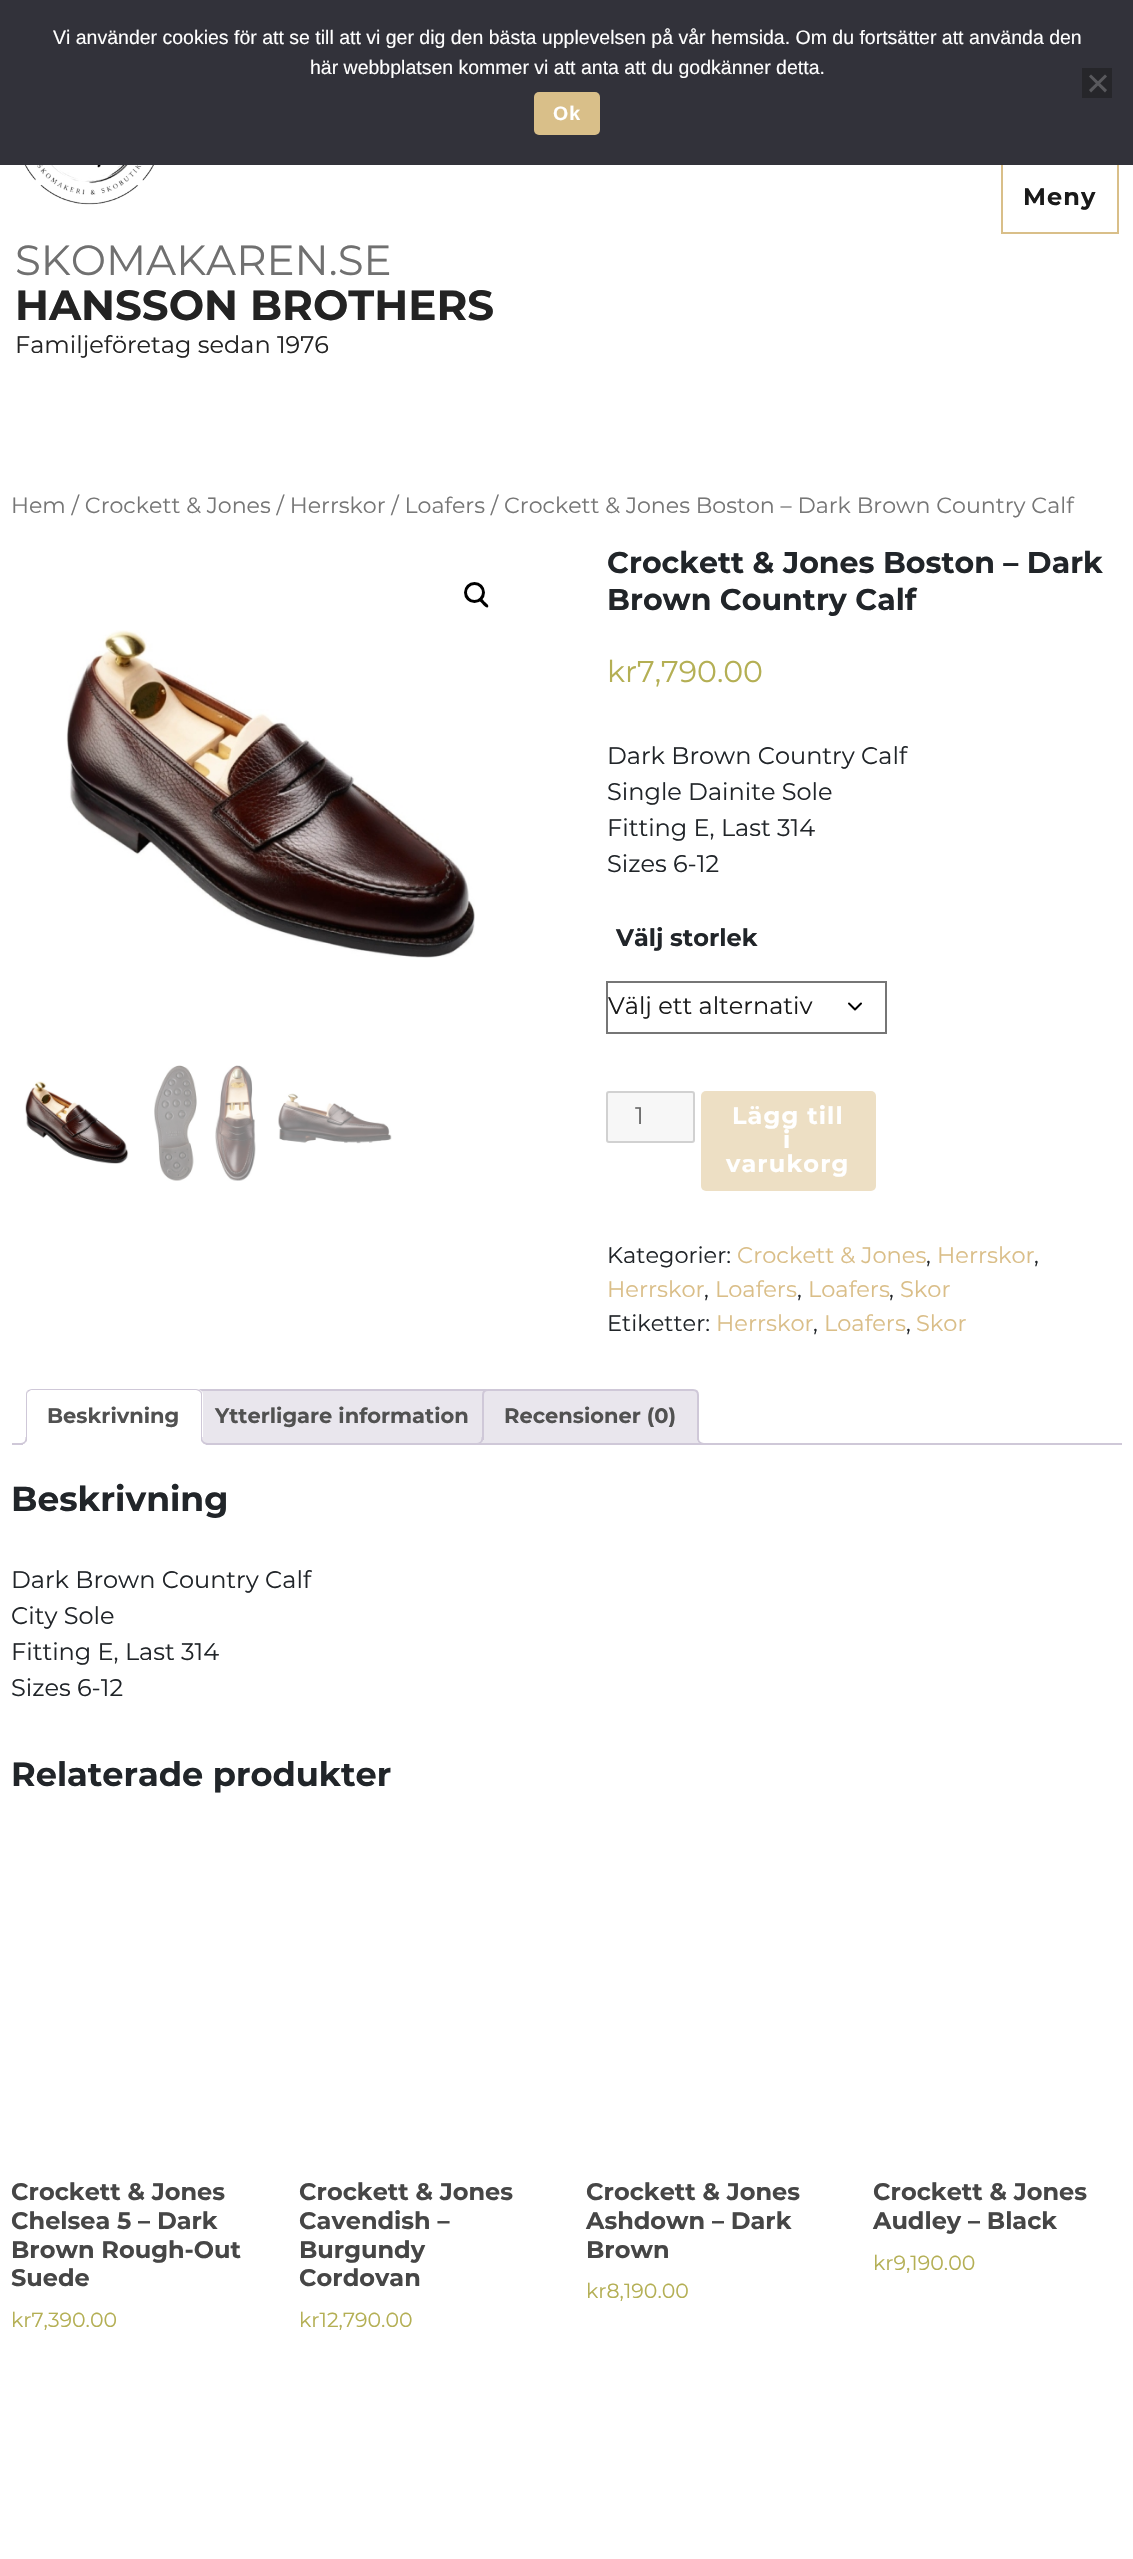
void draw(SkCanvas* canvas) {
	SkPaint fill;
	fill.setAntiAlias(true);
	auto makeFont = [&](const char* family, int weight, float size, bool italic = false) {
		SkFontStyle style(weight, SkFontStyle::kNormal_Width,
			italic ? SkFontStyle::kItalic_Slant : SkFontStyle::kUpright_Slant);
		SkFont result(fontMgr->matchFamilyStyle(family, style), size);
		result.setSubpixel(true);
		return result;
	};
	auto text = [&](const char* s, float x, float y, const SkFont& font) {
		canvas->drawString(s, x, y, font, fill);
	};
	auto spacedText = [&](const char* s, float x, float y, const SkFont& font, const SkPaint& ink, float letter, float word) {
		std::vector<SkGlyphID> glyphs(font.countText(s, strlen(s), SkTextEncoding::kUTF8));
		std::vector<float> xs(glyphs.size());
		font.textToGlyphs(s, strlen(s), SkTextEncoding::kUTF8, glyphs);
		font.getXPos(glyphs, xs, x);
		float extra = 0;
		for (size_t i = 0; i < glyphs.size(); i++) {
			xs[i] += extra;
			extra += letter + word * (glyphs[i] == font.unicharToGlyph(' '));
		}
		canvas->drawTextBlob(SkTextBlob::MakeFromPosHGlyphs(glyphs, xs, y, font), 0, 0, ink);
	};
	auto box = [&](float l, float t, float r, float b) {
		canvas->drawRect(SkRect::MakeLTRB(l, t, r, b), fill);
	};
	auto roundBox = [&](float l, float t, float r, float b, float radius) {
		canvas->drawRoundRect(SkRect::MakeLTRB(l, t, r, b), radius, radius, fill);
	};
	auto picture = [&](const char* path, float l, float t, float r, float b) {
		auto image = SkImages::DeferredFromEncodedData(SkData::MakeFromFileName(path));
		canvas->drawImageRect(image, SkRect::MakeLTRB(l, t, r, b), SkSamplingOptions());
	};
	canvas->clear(0xFFFFFFFF);
	fill.setStyle(SkPaint::kStroke_Style);
	fill.setStrokeWidth(2);
	fill.setColor(0xFFD9BF89);
	canvas->drawRect(SkRect::MakeLTRB(1002, 160, 1118, 233), fill);
	fill.setStyle(SkPaint::kFill_Style);
	fill.setColor(0xFF32323A);
	box(0, 0, 1133, 165);
	fill.setColor(0xFF26262A);
	box(1082, 68, 1112, 98);
	fill.setColor(0xFF59595D);
	canvas->drawPath(SkPathBuilder().moveTo(1105, 74.5f).lineTo(1107, 76.5f).lineTo(1091, 92.5f).lineTo(1089, 90).close().detach(), fill);
	canvas->drawPath(SkPathBuilder().moveTo(1089, 76.5f).lineTo(1091, 74.5f).lineTo(1107, 90).lineTo(1105, 92.5f).close().detach(), fill);
	fill.setColor(0xFFD9BF89);
	roundBox(534, 92, 600, 135, 5);
	picture("image0.png", 24, 165, 154, 205);
	fill.setStyle(SkPaint::kStroke_Style);
	fill.setStrokeWidth(3);
	fill.setColor(0xFF000000);
	canvas->drawCircle(474.5f, 592.5f, 9, fill);
	fill.setStyle(SkPaint::kFill_Style);
	canvas->drawPath(SkPathBuilder().moveTo(479.5f, 598.5f).cubicTo(481.5f, 597, 484, 601, 485, 602).cubicTo(486, 603, 489.5f, 605.5f, 488, 607).cubicTo(486.5f, 609, 483.5f, 605, 482.5f, 604).cubicTo(482, 603, 478, 600.5f, 479.5f, 598.5f).close().detach(), fill);
	picture("image1.png", 66, 630, 475, 958);
	picture("image2.png", 25, 1081, 129, 1164);
	picture("image3.png", 154, 1065, 256, 1181);
	picture("image4.png", 278, 1093, 392, 1144);
	fill.setStyle(SkPaint::kStroke_Style);
	fill.setStrokeWidth(2);
	fill.setStrokeCap(SkPaint::kRound_Cap);
	fill.setStrokeJoin(SkPaint::kRound_Join);
	canvas->drawPath(SkPathBuilder().moveTo(849, 1003.5f).lineTo(855, 1009.5f).lineTo(861, 1003.5f).detach(), fill);
	fill.setStrokeCap(SkPaint::kButt_Cap);
	fill.setStrokeJoin(SkPaint::kMiter_Join);
	fill.setColor(0xFF767676);
	canvas->drawRect(SkRect::MakeLTRB(607, 982, 886, 1033), fill);
	fill.setStyle(SkPaint::kFill_Style);
	fill.setColor(0xFFF7F7F7);
	canvas->drawRoundRect(SkRect::MakeLTRB(607, 1092, 694, 1142), 2, 2, fill);
	fill.setStyle(SkPaint::kStroke_Style);
	fill.setColor(0xFFD1D1D1);
	canvas->drawRoundRect(SkRect::MakeLTRB(607, 1092, 694, 1142), 2, 2, fill);
	fill.setStyle(SkPaint::kFill_Style);
	fill.setColor(0xFFEDDFC4);
	roundBox(701, 1091, 876, 1191, 5);
	fill.setColor(0xFFE9E6ED);
	canvas->drawPath(SkPathBuilder().moveTo(198, 1390).lineTo(486, 1390).cubicTo(489, 1390, 491, 1392, 491, 1395).lineTo(491, 1444).lineTo(193, 1444).lineTo(193, 1395).cubicTo(193, 1392, 195, 1390, 198, 1390).close().detach(), fill);
	fill.setStyle(SkPaint::kStroke_Style);
	fill.setColor(0xFFCFC8D8);
	canvas->drawPath(SkPathBuilder().moveTo(198, 1390).lineTo(486, 1390).cubicTo(489, 1390, 491, 1392, 491, 1395).lineTo(491, 1444).lineTo(193, 1444).lineTo(193, 1395).cubicTo(193, 1392, 195, 1390, 198, 1390).close().detach(), fill);
	fill.setStyle(SkPaint::kFill_Style);
	fill.setColor(0xFFE9E6ED);
	canvas->drawPath(SkPathBuilder().moveTo(488, 1390).lineTo(693, 1390).cubicTo(696, 1390, 698, 1392, 698, 1395).lineTo(698, 1444).lineTo(483, 1444).lineTo(483, 1395).cubicTo(483, 1392, 485, 1390, 488, 1390).close().detach(), fill);
	fill.setStyle(SkPaint::kStroke_Style);
	fill.setColor(0xFFCFC8D8);
	canvas->drawPath(SkPathBuilder().moveTo(488, 1390).lineTo(693, 1390).cubicTo(696, 1390, 698, 1392, 698, 1395).lineTo(698, 1444).lineTo(483, 1444).lineTo(483, 1395).cubicTo(483, 1392, 485, 1390, 488, 1390).close().detach(), fill);
	canvas->save();
	canvas->clipRect(SkRect::MakeLTRB(12, 1389, 1122, 1445));
	fill.setStyle(SkPaint::kFill_Style);
	fill.setColor(0xFFE9E6ED);
	canvas->drawPath(SkPathBuilder().moveTo(479, 1444).lineTo(479, 1448).cubicTo(484.5f, 1448, 486, 1445, 486, 1440).lineTo(483, 1440).cubicTo(482.5f, 1442, 481, 1443.5f, 479, 1444).close().detach(), fill);
	canvas->restore();
	fill.setColor(0xFFCFC8D8);
	canvas->drawPath(SkPathBuilder(SkPathFillType::kEvenOdd).moveTo(475.5f, 1437).lineTo(483, 1437).cubicTo(483, 1442.5f, 481, 1444.5f, 475.5f, 1444.5f).close().moveTo(475.5f, 1437).lineTo(481.5f, 1437).cubicTo(481.5f, 1441.5f, 480, 1443, 475.5f, 1443).close().detach(), fill);
	canvas->save();
	canvas->clipRect(SkRect::MakeLTRB(12, 1389, 1122, 1445));
	fill.setColor(0xFFE9E6ED);
	canvas->drawPath(SkPathBuilder().moveTo(695, 1440).cubicTo(695, 1445, 696.5f, 1448, 702, 1448).lineTo(702, 1444.5f).cubicTo(700, 1444, 698, 1442, 697.5f, 1440).close().detach(), fill);
	canvas->restore();
	fill.setColor(0xFFCFC8D8);
	canvas->drawPath(SkPathBuilder(SkPathFillType::kEvenOdd).moveTo(697.5f, 1437).lineTo(705, 1437).lineTo(705, 1444.5f).cubicTo(701, 1444.5f, 697.5f, 1443, 697.5f, 1438.5f).close().moveTo(699, 1437).lineTo(705, 1437).lineTo(705, 1443).cubicTo(702, 1443, 699, 1442, 699, 1438.5f).close().detach(), fill);
	box(12, 1443, 1122, 1445);
	fill.setColor(0xFFFFFFFF);
	canvas->drawPath(SkPathBuilder().moveTo(32, 1389).lineTo(197, 1389).cubicTo(200.5f, 1389, 203, 1391.5f, 203, 1395).lineTo(203, 1445).lineTo(26, 1445).lineTo(26, 1395).cubicTo(26, 1391.5f, 28.5f, 1389, 32, 1389).close().detach(), fill);
	fill.setColor(0xFFCFC8D8);
	canvas->drawPath(SkPathBuilder().moveTo(32, 1389).cubicTo(30, 1389, 28, 1390, 27, 1391).lineTo(28, 1392).lineTo(31, 1390).lineTo(196, 1390).cubicTo(197, 1390, 199, 1391, 200, 1392).lineTo(201, 1391).cubicTo(200, 1390, 198, 1389, 196, 1389).close().detach(), fill);
	canvas->drawPath(SkPathBuilder().moveTo(201, 1391).cubicTo(202, 1392, 202, 1394, 202, 1395).lineTo(202, 1444).lineTo(201, 1443).lineTo(201, 1395).cubicTo(201, 1394, 201, 1393, 200, 1392).close().detach(), fill);
	fill.setColor(0xFFFFFFFF);
	canvas->drawPath(SkPathBuilder().moveTo(202, 1444).lineTo(201, 1443).lineTo(27, 1443).lineTo(26, 1444).close().detach(), fill);
	fill.setColor(0xFFCFC8D8);
	canvas->drawPath(SkPathBuilder().moveTo(27, 1391).cubicTo(26, 1392, 26, 1394, 26, 1395).lineTo(26, 1444).lineTo(27, 1443).lineTo(27, 1395).cubicTo(27, 1394, 27, 1393, 28, 1392).close().detach(), fill);
	canvas->save();
	canvas->clipRect(SkRect::MakeLTRB(12, 1389, 1122, 1445));
	fill.setColor(0xFFFFFFFF);
	canvas->drawPath(SkPathBuilder().moveTo(23, 1444).lineTo(23, 1448).cubicTo(28.5f, 1448, 30, 1445, 30, 1440).lineTo(27, 1440).cubicTo(26.5f, 1442, 25, 1443.5f, 23, 1444).close().detach(), fill);
	canvas->restore();
	fill.setColor(0xFFCFC8D8);
	canvas->drawPath(SkPathBuilder(SkPathFillType::kEvenOdd).moveTo(19.5f, 1437).lineTo(27, 1437).cubicTo(27, 1442.5f, 25, 1444.5f, 19.5f, 1444.5f).close().moveTo(19.5f, 1437).lineTo(25.5f, 1437).cubicTo(25.5f, 1441.5f, 24, 1443, 19.5f, 1443).close().detach(), fill);
	canvas->save();
	canvas->clipRect(SkRect::MakeLTRB(12, 1389, 1122, 1445));
	fill.setColor(0xFFFFFFFF);
	canvas->drawPath(SkPathBuilder().moveTo(198, 1440).cubicTo(198, 1446, 200, 1448, 206, 1448).lineTo(206, 1444.5f).cubicTo(203.5f, 1444, 202, 1442.5f, 201, 1440).close().detach(), fill);
	canvas->restore();
	fill.setColor(0xFFCFC8D8);
	canvas->drawPath(SkPathBuilder(SkPathFillType::kEvenOdd).moveTo(201, 1437).lineTo(208.5f, 1437).lineTo(208.5f, 1444.5f).cubicTo(204.5f, 1444.5f, 201, 1443, 201, 1438.5f).close().moveTo(202.5f, 1437).lineTo(208.5f, 1437).lineTo(208.5f, 1443).cubicTo(205.5f, 1443, 202.5f, 1442, 202.5f, 1438.5f).close().detach(), fill);
	auto font1 = makeFont("Liberation Sans", 400, 19.5f);
	fill.setColor(0xFFFFFFFF);
	text("Vi använder cookies för att se till att vi ger dig den bästa upplevelsen på vår hemsida. Om du fortsätter att använda den", 53, 44, font1);
	text("här webbplatsen kommer vi att anta att du godkänner detta.", 310, 74, font1);
	auto font2 = makeFont("Liberation Sans", 700, 19.5f);
	spacedText("Ok", 553, 120, font2, fill, 1, 0);
	auto font3 = makeFont("Montserrat", 100, 24);
	fill.setColor(0xFF1A1A1A);
	spacedText("Meny", 1023, 205, font3, fill, 1.1f, 0);
	auto font4 = makeFont("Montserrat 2", 100, 42);
	fill.setColor(0xFF707070);
	text("SKOMAKAREN.SE", 15, 275, font4);
	auto font5 = makeFont("Montserrat", 100, 42);
	fill.setColor(0xFF232323);
	text("HANSSON BROTHERS", 15, 320, font5);
	auto font6 = makeFont("Montserrat 2", 100, 24);
	text("Familjeföretag sedan 1976", 15, 353, font6);
	auto font7 = makeFont("Montserrat 2", 100, 22.1f);
	fill.setColor(0xFF767676);
	text("Hem / Crockett & Jones / Herrskor / Loafers / Crockett & Jones Boston – Dark Brown Country Calf", 11, 513, font7);
	auto font8 = makeFont("Montserrat", 100, 30);
	fill.setColor(0xFF212529);
	text("Crockett & Jones Boston – Dark", 607, 573, font8);
	text("Brown Country Calf", 607, 610, font8);
	auto font9 = makeFont("Montserrat 2", 100, 30);
	fill.setColor(0xFFB4AF54);
	text("kr7,790.00", 607, 682, font9);
	fill.setColor(0xFF212529);
	text("Dark Brown Country Calf", 607, 764, font6);
	text("Single Dainite Sole", 607, 800, font6);
	text("Fitting E, Last 314", 607, 836, font6);
	text("Sizes 6-12", 607, 872, font6);
	text("Välj storlek", 616, 946, font3);
	fill.setColor(0xFF1A1A1A);
	text("Välj ett alternativ", 608, 1014, font6);
	fill.setColor(0xFF686868);
	text("1", 635, 1124, font6);
	fill.setColor(0xFFFFFFFF);
	spacedText("Lägg till", 732, 1124, font3, fill, 1.1f, 0);
	spacedText("i", 783, 1148, font3, fill, 1.1f, 0);
	spacedText("varukorg", 726, 1172, font3, fill, 1.1f, 0);
	auto font10 = makeFont("Montserrat 2", 100, 22.5f);
	fill.setColor(0xFF212529);
	text("Kategorier:", 607, 1263, font10);
	fill.setColor(0xFFDABE88);
	text("Crockett & Jones", 737, 1263, font10);
	fill.setColor(0xFF212529);
	text(",", 926, 1263, font10);
	fill.setColor(0xFFDABE88);
	text("Herrskor", 937, 1263, font10);
	fill.setColor(0xFF212529);
	text(",", 1034, 1263, font10);
	fill.setColor(0xFFDABE88);
	text("Herrskor", 607, 1297, font10);
	fill.setColor(0xFF212529);
	text(",", 704, 1297, font10);
	fill.setColor(0xFFDABE88);
	text("Loafers", 715, 1297, font10);
	fill.setColor(0xFF212529);
	text(",", 797, 1297, font10);
	fill.setColor(0xFFDABE88);
	text("Loafers", 808, 1297, font10);
	fill.setColor(0xFF212529);
	text(",", 889, 1297, font10);
	fill.setColor(0xFFDABE88);
	text("Skor", 900, 1297, font10);
	fill.setColor(0xFF212529);
	text("Etiketter:", 607, 1331, font10);
	fill.setColor(0xFFDABE88);
	text("Herrskor", 716, 1331, font10);
	fill.setColor(0xFF212529);
	text(",", 813, 1331, font10);
	fill.setColor(0xFFDABE88);
	text("Loafers", 824, 1331, font10);
	fill.setColor(0xFF212529);
	text(",", 906, 1331, font10);
	fill.setColor(0xFFDABE88);
	text("Skor", 916, 1331, font10);
	auto font11 = makeFont("Montserrat", 100, 21);
	fill.setColor(0xFF515151);
	text("Beskrivning", 47, 1423, font11);
	text("Ytterligare information", 215, 1423, font11);
	text("Recensioner (0)", 504, 1423, font11);
	auto font12 = makeFont("Montserrat", 100, 34.5f);
	fill.setColor(0xFF212529);
	text("Beskrivning", 11, 1511, font12);
	text("Dark Brown Country Calf", 11, 1588, font6);
	text("City Sole", 11, 1624, font6);
	text("Fitting E, Last 314", 11, 1660, font6);
	text("Sizes 6-12", 11, 1696, font6);
	auto font13 = makeFont("Montserrat", 100, 33.6f);
	text("Relaterade produkter", 11, 1786, font13);
	fill.setColor(0xFF464646);
	text("Crockett & Jones", 11, 2200, font3);
	text("Chelsea 5 – Dark", 11, 2229, font3);
	text("Brown Rough-Out", 11, 2258, font3);
	text("Suede", 11, 2286, font3);
	auto font14 = makeFont("Montserrat 2", 100, 20.5f);
	fill.setColor(0xFFB4AF54);
	text("kr7,390.00", 11, 2327, font14);
	fill.setColor(0xFF464646);
	text("Crockett & Jones", 299, 2200, font3);
	text("Cavendish –", 299, 2229, font3);
	text("Burgundy", 299, 2258, font3);
	text("Cordovan", 299, 2286, font3);
	fill.setColor(0xFFB4AF54);
	text("kr12,790.00", 299, 2327, font14);
	fill.setColor(0xFF464646);
	text("Crockett & Jones", 586, 2200, font3);
	text("Ashdown – Dark", 586, 2229, font3);
	text("Brown", 586, 2258, font3);
	fill.setColor(0xFFB4AF54);
	text("kr8,190.00", 586, 2298, font14);
	fill.setColor(0xFF464646);
	text("Crockett & Jones", 873, 2200, font3);
	text("Audley – Black", 873, 2229, font3);
	fill.setColor(0xFFB4AF54);
	text("kr9,190.00", 873, 2270, font14);
}
